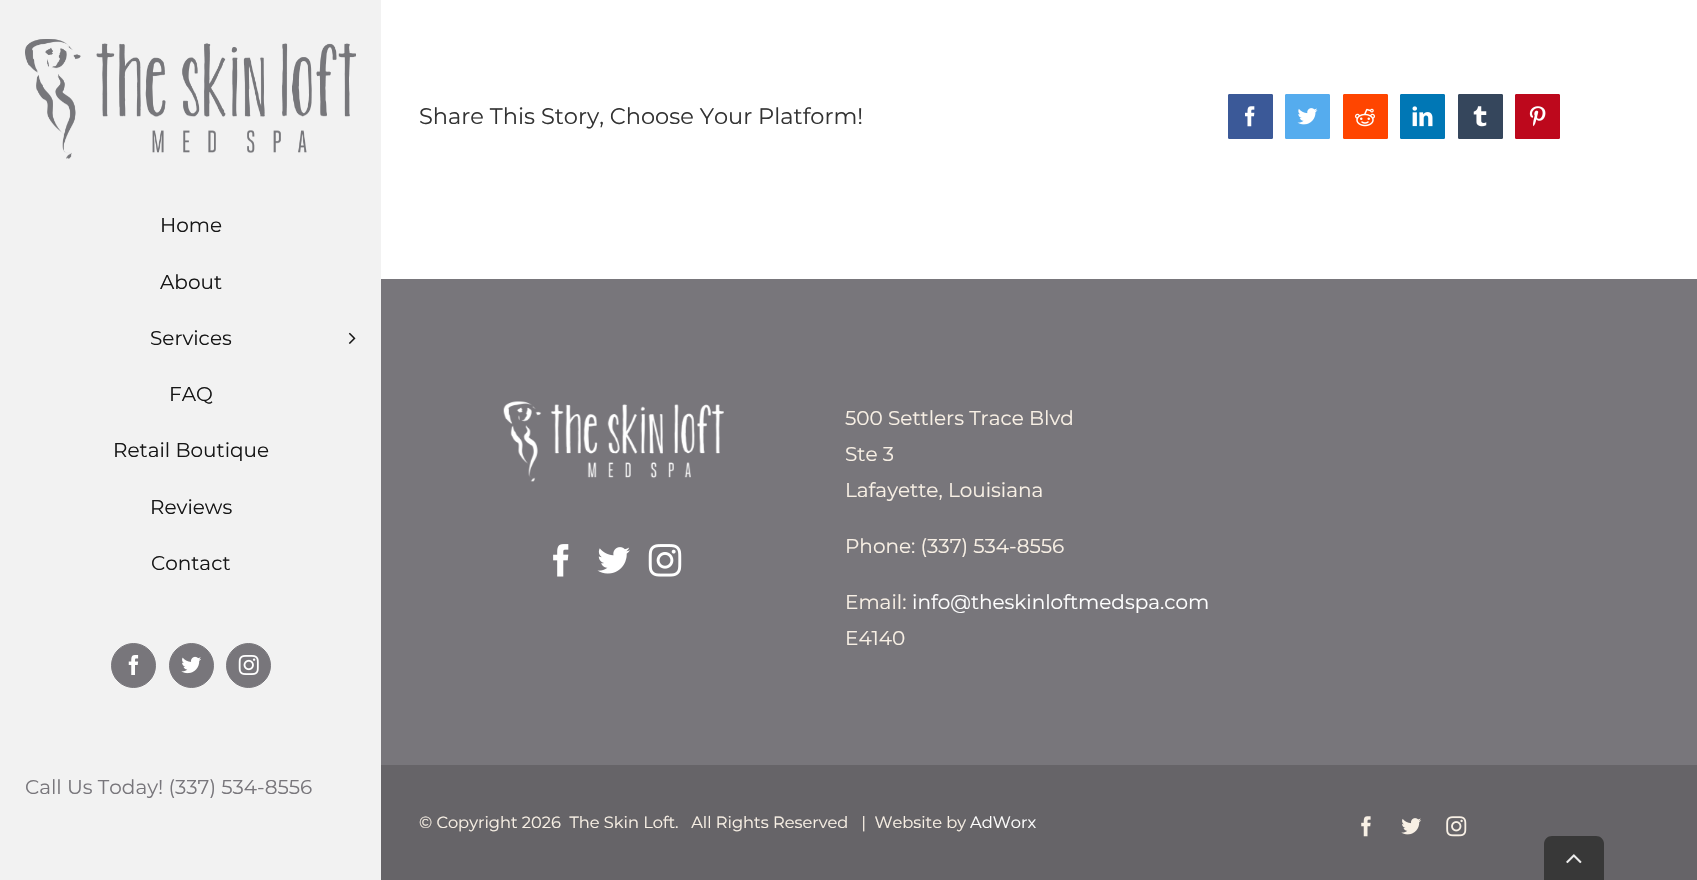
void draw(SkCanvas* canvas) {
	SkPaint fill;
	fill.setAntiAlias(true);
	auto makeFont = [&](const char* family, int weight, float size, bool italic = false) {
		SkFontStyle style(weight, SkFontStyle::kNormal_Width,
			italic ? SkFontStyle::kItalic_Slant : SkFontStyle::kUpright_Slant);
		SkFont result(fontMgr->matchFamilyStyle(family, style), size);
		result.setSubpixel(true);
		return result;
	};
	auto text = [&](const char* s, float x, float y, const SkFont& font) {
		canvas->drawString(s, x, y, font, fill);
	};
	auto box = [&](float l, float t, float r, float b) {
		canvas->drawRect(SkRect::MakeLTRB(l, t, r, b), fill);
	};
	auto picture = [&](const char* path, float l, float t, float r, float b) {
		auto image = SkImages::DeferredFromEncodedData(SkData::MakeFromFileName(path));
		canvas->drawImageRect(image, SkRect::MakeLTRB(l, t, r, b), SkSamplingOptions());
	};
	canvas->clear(0xFFFFFFFF);
	fill.setColor(0xFF3B5998);
	canvas->drawRoundRect(SkRect::MakeLTRB(1228.5f, 94.5f, 1272.5f, 138.5f), 0.5f, 0.5f, fill);
	fill.setStyle(SkPaint::kStroke_Style);
	fill.setStrokeWidth(1);
	canvas->drawRoundRect(SkRect::MakeLTRB(1228.5f, 94.5f, 1272.5f, 138.5f), 0.5f, 0.5f, fill);
	picture("image0.png", 1245, 106, 1255, 127);
	fill.setStyle(SkPaint::kFill_Style);
	fill.setColor(0xFF55ACEE);
	canvas->drawRoundRect(SkRect::MakeLTRB(1285.5f, 94.5f, 1329.5f, 138.5f), 0.5f, 0.5f, fill);
	fill.setStyle(SkPaint::kStroke_Style);
	canvas->drawRoundRect(SkRect::MakeLTRB(1285.5f, 94.5f, 1329.5f, 138.5f), 0.5f, 0.5f, fill);
	picture("image1.png", 1297, 108, 1318, 125);
	fill.setStyle(SkPaint::kFill_Style);
	fill.setColor(0xFFFF4500);
	canvas->drawRoundRect(SkRect::MakeLTRB(1343.5f, 94.5f, 1387.5f, 138.5f), 0.5f, 0.5f, fill);
	fill.setStyle(SkPaint::kStroke_Style);
	canvas->drawRoundRect(SkRect::MakeLTRB(1343.5f, 94.5f, 1387.5f, 138.5f), 0.5f, 0.5f, fill);
	picture("image2.png", 1355, 108, 1375, 127);
	fill.setStyle(SkPaint::kFill_Style);
	fill.setColor(0xFF0077B5);
	canvas->drawRoundRect(SkRect::MakeLTRB(1400.5f, 94.5f, 1444.5f, 138.5f), 0.5f, 0.5f, fill);
	fill.setStyle(SkPaint::kStroke_Style);
	canvas->drawRoundRect(SkRect::MakeLTRB(1400.5f, 94.5f, 1444.5f, 138.5f), 0.5f, 0.5f, fill);
	picture("image3.png", 1412, 106, 1433, 127);
	fill.setStyle(SkPaint::kFill_Style);
	fill.setColor(0xFF35465C);
	canvas->drawRoundRect(SkRect::MakeLTRB(1458.5f, 94.5f, 1502.5f, 138.5f), 0.5f, 0.5f, fill);
	fill.setStyle(SkPaint::kStroke_Style);
	canvas->drawRoundRect(SkRect::MakeLTRB(1458.5f, 94.5f, 1502.5f, 138.5f), 0.5f, 0.5f, fill);
	picture("image4.png", 1473, 106, 1487, 127);
	fill.setStyle(SkPaint::kFill_Style);
	fill.setColor(0xFFBD081C);
	canvas->drawRoundRect(SkRect::MakeLTRB(1515.5f, 94.5f, 1559.5f, 138.5f), 0.5f, 0.5f, fill);
	fill.setStyle(SkPaint::kStroke_Style);
	canvas->drawRoundRect(SkRect::MakeLTRB(1515.5f, 94.5f, 1559.5f, 138.5f), 0.5f, 0.5f, fill);
	picture("image5.png", 1529, 106, 1546, 127);
	fill.setStyle(SkPaint::kFill_Style);
	fill.setColor(0xFFF2F2F2);
	box(0, 0, 381, 880);
	picture("image6.png", 25, 39, 356, 159);
	picture("image7.png", 348, 332, 356, 344);
	fill.setColor(0xFF78767B);
	canvas->drawCircle(133.5f, 665.5f, 22, fill);
	fill.setStyle(SkPaint::kStroke_Style);
	canvas->drawCircle(133.5f, 665.5f, 22, fill);
	picture("image8.png", 128, 655, 139, 675);
	fill.setStyle(SkPaint::kFill_Style);
	canvas->drawCircle(191.5f, 665.5f, 22, fill);
	fill.setStyle(SkPaint::kStroke_Style);
	canvas->drawCircle(191.5f, 665.5f, 22, fill);
	picture("image9.png", 181, 656, 201, 674);
	fill.setStyle(SkPaint::kFill_Style);
	canvas->drawCircle(248.5f, 665.5f, 22, fill);
	fill.setStyle(SkPaint::kStroke_Style);
	canvas->drawCircle(248.5f, 665.5f, 22, fill);
	picture("image10.png", 238, 655, 259, 675);
	fill.setStyle(SkPaint::kFill_Style);
	box(381, 279, 1697, 765);
	picture("image11.png", 503, 401, 724, 482);
	picture("image12.png", 553, 544, 569, 577);
	picture("image13.png", 597, 547, 630, 574);
	picture("image14.png", 648, 544, 682, 577);
	fill.setColor(0xFF666468);
	box(381, 765, 1697, 880);
	picture("image15.png", 1361, 816, 1371, 837);
	picture("image16.png", 1401, 818, 1422, 835);
	picture("image17.png", 1446, 816, 1467, 837);
	fill.setColor(0xFF383838);
	canvas->drawPath(SkPathBuilder().moveTo(1552, 836).lineTo(1596, 836).cubicTo(1600.5f, 836, 1604, 839.5f, 1604, 844).lineTo(1604, 880).lineTo(1544, 880).lineTo(1544, 844).cubicTo(1544, 839.5f, 1547.5f, 836, 1552, 836).close().detach(), fill);
	picture("image18.png", 1566, 854, 1582, 864);
	auto font1 = makeFont("Montserrat", 400, 22.5f);
	fill.setColor(0xFF333333);
	text("Share This Story, Choose Your Platform!", 419, 124, font1);
	auto font2 = makeFont("Montserrat", 400, 20);
	fill.setColor(0xFF171717);
	text("Home", 160, 232, font2);
	text("About", 160, 289, font2);
	text("Services", 150, 345, font2);
	text("FAQ", 169, 401, font2);
	text("Retail Boutique", 113, 457, font2);
	text("Reviews", 150, 514, font2);
	text("Contact", 151, 570, font2);
	fill.setColor(0xFF78767B);
	text("Call Us Today! (337) 534-8556", 25, 794, font2);
	fill.setColor(0xFFF8F0E5);
	text("500 Settlers Trace Blvd", 845, 425, font2);
	text("Ste 3", 845, 461, font2);
	text("Lafayette, Louisiana", 845, 497, font2);
	text("Phone: (337) 534-8556", 845, 553, font2);
	text("Email:", 845, 609, font2);
	fill.setColor(0xFFFFFFFF);
	text("info@theskinloftmedspa.com", 912, 609, font2);
	fill.setColor(0xFFF8F0E5);
	text("E4140", 845, 645, font2);
	auto font3 = makeFont("Montserrat", 400, 16.25f);
	text("© Copyright 2026  The Skin Loft.   All Rights Reserved   |  Website by", 419, 828, font3);
	fill.setColor(0xFFFFFFFF);
	text("AdWorx", 970, 828, font3);
}
